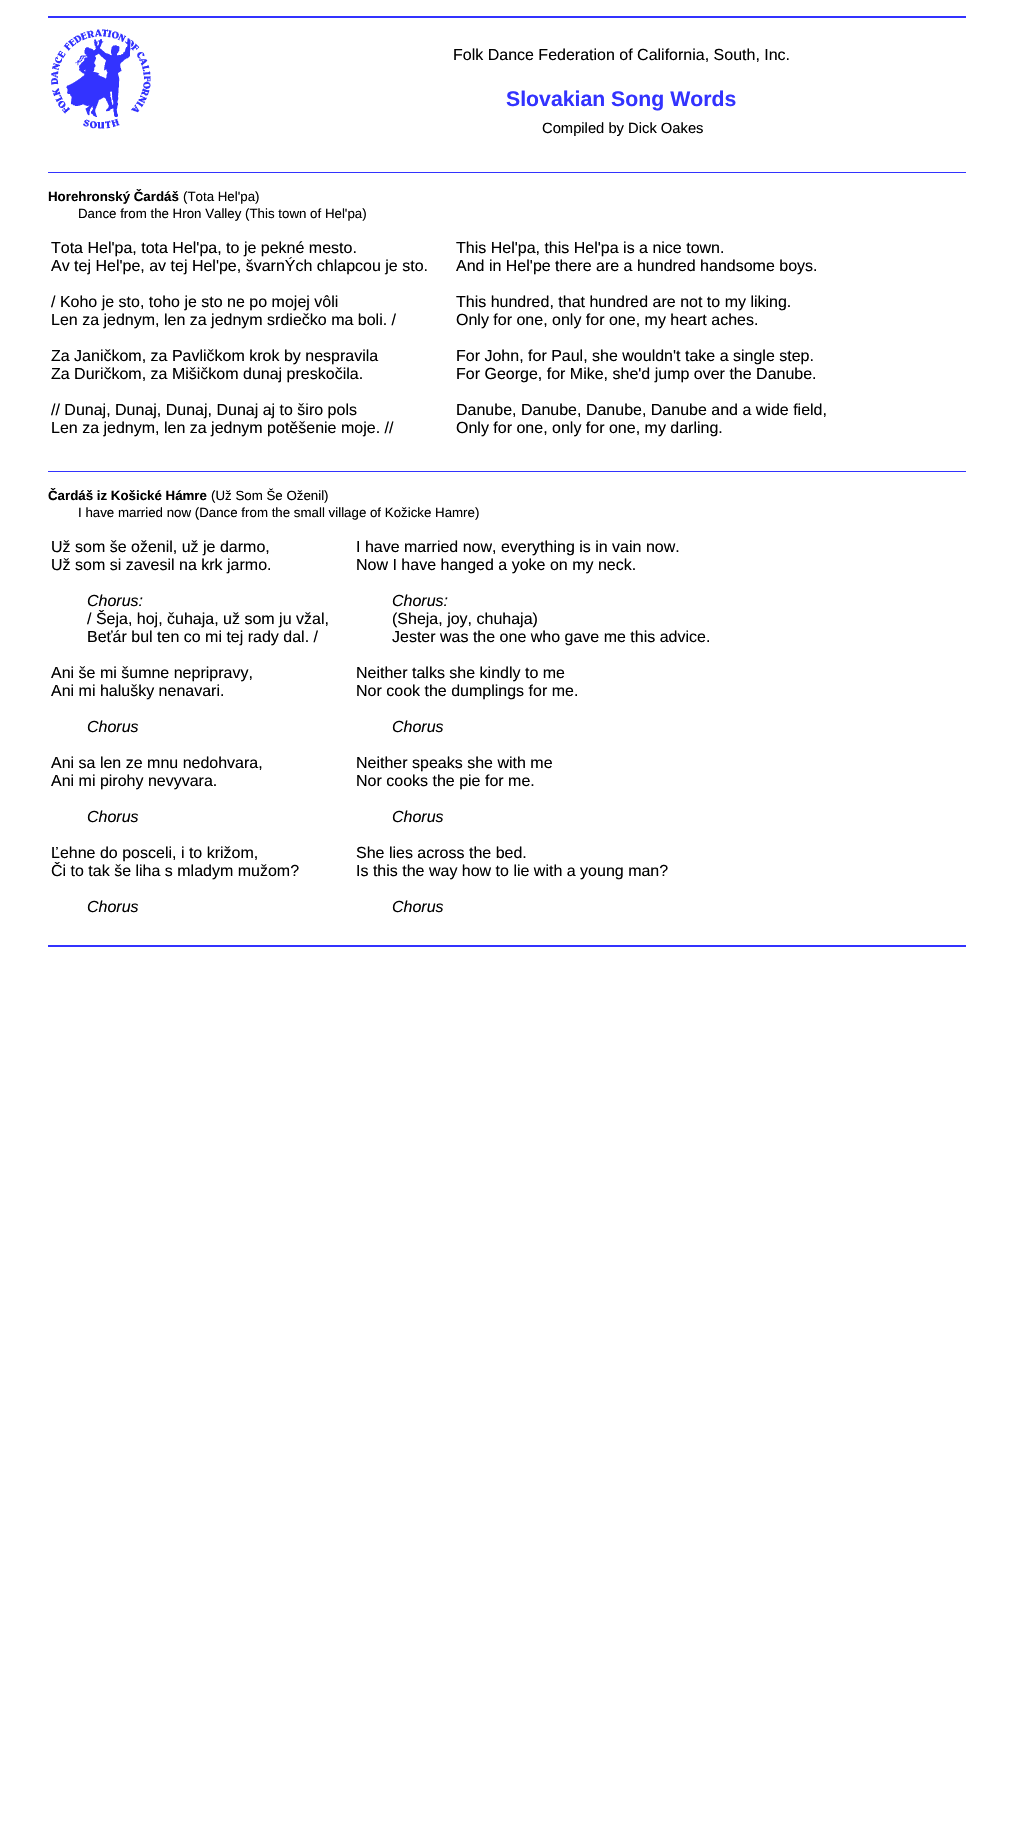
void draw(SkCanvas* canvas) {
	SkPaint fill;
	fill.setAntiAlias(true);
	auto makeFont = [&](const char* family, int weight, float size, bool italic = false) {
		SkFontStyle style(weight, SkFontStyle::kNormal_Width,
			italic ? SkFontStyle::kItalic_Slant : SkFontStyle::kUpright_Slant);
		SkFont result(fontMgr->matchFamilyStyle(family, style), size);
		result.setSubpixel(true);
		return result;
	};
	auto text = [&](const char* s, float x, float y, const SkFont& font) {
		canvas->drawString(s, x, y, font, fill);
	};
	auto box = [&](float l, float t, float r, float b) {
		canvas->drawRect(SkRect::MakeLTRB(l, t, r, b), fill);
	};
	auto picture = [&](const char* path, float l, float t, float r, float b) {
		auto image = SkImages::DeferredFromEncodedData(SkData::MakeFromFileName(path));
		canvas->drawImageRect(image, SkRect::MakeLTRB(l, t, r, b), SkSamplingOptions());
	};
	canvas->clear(0xFFFFFFFF);
	fill.setColor(0xFF3333FF);
	box(48, 16, 966, 18);
	picture("image0.png", 51, 29, 151, 129);
	box(48, 172, 966, 173);
	box(48, 471, 966, 472);
	box(48, 945, 966, 947);
	auto font1 = makeFont("Liberation Sans", 400, 16);
	fill.setColor(0xFF000000);
	text("Folk Dance Federation of California, South, Inc.", 453, 60, font1);
	auto font2 = makeFont("Liberation Sans", 700, 21.25f);
	fill.setColor(0xFF3333FF);
	text("Slovakian Song Words", 506, 106, font2);
	auto font3 = makeFont("Liberation Sans", 400, 14.75f);
	fill.setColor(0xFF000000);
	text("Compiled by Dick Oakes", 542, 133, font3);
	auto font4 = makeFont("Liberation Sans", 700, 13.3f);
	text("Horehronský Čardáš", 48, 201, font4);
	auto font5 = makeFont("Liberation Sans", 400, 13.3f);
	text("(Tota Hel'pa)", 183, 201, font5);
	text("Dance from the Hron Valley (This town of Hel'pa)", 78, 218, font5);
	text("Tota Hel'pa, tota Hel'pa, to je pekné mesto.", 51, 253, font1);
	text("Av tej Hel'pe, av tej Hel'pe, švarnÝch chlapcou je sto.", 51, 271, font1);
	text("/ Koho je sto, toho je sto ne po mojej vôli", 51, 307, font1);
	text("Len za jednym, len za jednym srdiečko ma boli. /", 51, 325, font1);
	text("Za Janičkom, za Pavličkom krok by nespravila", 51, 361, font1);
	text("Za Duričkom, za Mišičkom dunaj preskočila.", 51, 379, font1);
	text("// Dunaj, Dunaj, Dunaj, Dunaj aj to širo pols", 51, 415, font1);
	text("Len za jednym, len za jednym potěšenie moje. //", 51, 433, font1);
	text("This Hel'pa, this Hel'pa is a nice town.", 456, 253, font1);
	text("And in Hel'pe there are a hundred handsome boys.", 456, 271, font1);
	text("This hundred, that hundred are not to my liking.", 456, 307, font1);
	text("Only for one, only for one, my heart aches.", 456, 325, font1);
	text("For John, for Paul, she wouldn't take a single step.", 456, 361, font1);
	text("For George, for Mike, she'd jump over the Danube.", 456, 379, font1);
	text("Danube, Danube, Danube, Danube and a wide field,", 456, 415, font1);
	text("Only for one, only for one, my darling.", 456, 433, font1);
	text("Čardáš iz Košické Hámre", 48, 500, font4);
	text("(Už Som Še Oženil)", 211, 500, font5);
	text("I have married now (Dance from the small village of Kožicke Hamre)", 78, 517, font5);
	text("Už som še oženil, už je darmo,", 51, 552, font1);
	text("Už som si zavesil na krk jarmo.", 51, 570, font1);
	auto font6 = makeFont("Liberation Sans", 400, 16, true);
	text("Chorus:", 87, 606, font6);
	text("/ Šeja, hoj, čuhaja, už som ju vžal,", 87, 624, font1);
	text("Beťár bul ten co mi tej rady dal. /", 87, 642, font1);
	text("Ani še mi šumne nepripravy,", 51, 678, font1);
	text("Ani mi halušky nenavari.", 51, 696, font1);
	text("Chorus", 87, 732, font6);
	text("Ani sa len ze mnu nedohvara,", 51, 768, font1);
	text("Ani mi pirohy nevyvara.", 51, 786, font1);
	text("Chorus", 87, 822, font6);
	text("Ľehne do posceli, i to križom,", 51, 858, font1);
	text("Či to tak še liha s mladym mužom?", 51, 876, font1);
	text("Chorus", 87, 912, font6);
	text("I have married now, everything is in vain now.", 356, 552, font1);
	text("Now I have hanged a yoke on my neck.", 356, 570, font1);
	text("Chorus:", 392, 606, font6);
	text("(Sheja, joy, chuhaja)", 392, 624, font1);
	text("Jester was the one who gave me this advice.", 392, 642, font1);
	text("Neither talks she kindly to me", 356, 678, font1);
	text("Nor cook the dumplings for me.", 356, 696, font1);
	text("Chorus", 392, 732, font6);
	text("Neither speaks she with me", 356, 768, font1);
	text("Nor cooks the pie for me.", 356, 786, font1);
	text("Chorus", 392, 822, font6);
	text("She lies across the bed.", 356, 858, font1);
	text("Is this the way how to lie with a young man?", 356, 876, font1);
	text("Chorus", 392, 912, font6);
}
